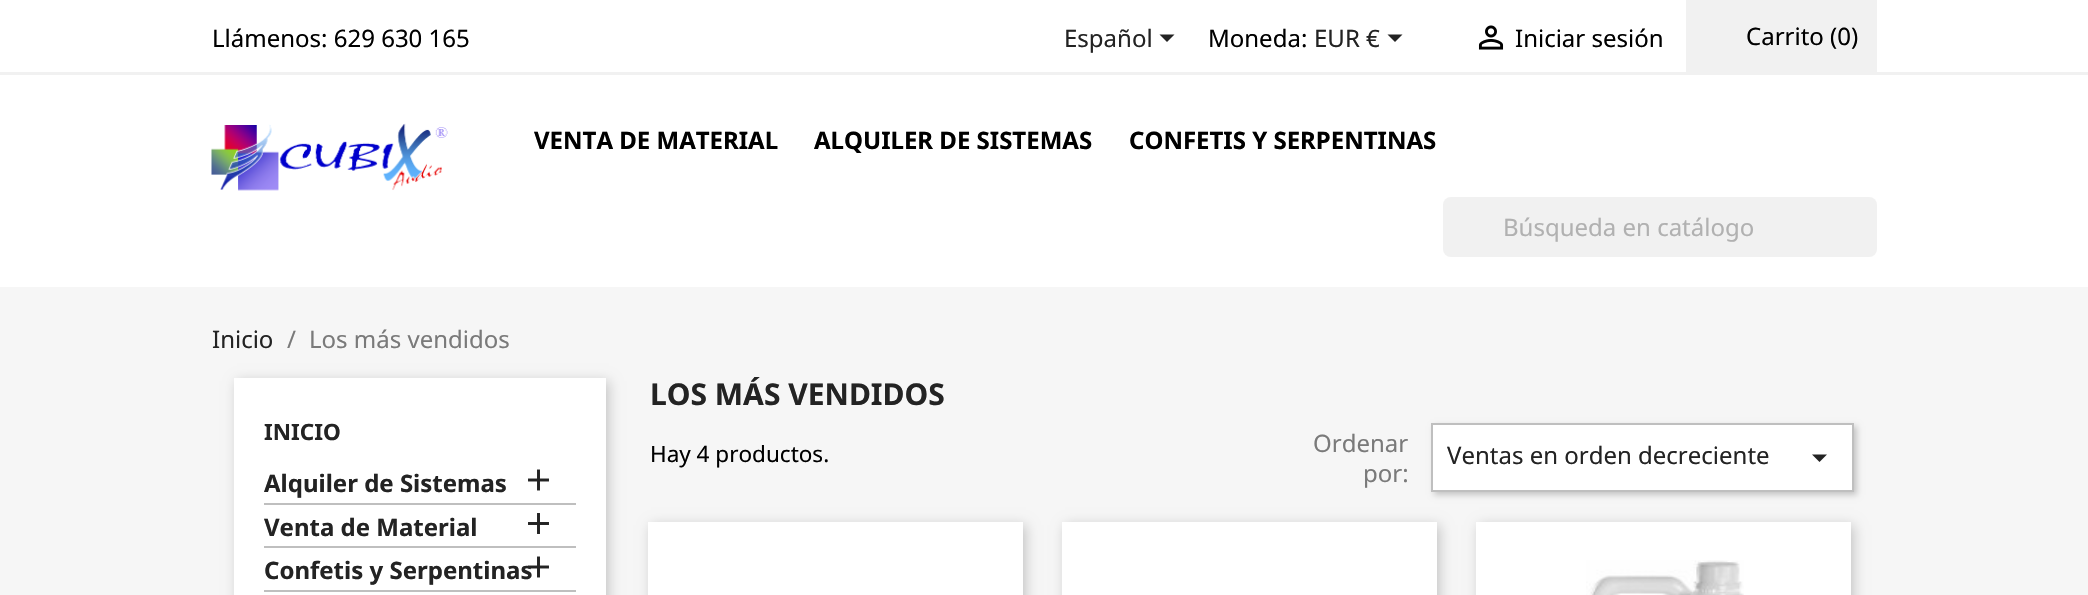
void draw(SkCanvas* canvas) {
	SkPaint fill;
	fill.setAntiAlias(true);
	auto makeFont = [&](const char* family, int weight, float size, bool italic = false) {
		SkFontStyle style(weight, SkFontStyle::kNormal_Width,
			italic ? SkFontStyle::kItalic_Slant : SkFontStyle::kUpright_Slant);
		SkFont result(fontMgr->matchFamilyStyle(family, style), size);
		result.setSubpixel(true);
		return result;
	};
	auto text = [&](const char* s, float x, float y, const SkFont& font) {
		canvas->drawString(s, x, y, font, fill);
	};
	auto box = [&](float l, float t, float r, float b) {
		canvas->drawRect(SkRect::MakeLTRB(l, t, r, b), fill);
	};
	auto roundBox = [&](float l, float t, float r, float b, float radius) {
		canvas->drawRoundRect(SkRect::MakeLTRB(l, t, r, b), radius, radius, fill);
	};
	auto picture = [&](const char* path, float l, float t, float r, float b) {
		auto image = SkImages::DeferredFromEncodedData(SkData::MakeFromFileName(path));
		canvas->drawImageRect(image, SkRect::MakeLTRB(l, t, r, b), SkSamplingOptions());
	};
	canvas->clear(0xFFFFFFFF);
	fill.setColor(0xFFF1F1F1);
	box(0, 72, 2088, 75);
	fill.setColor(0xFF232323);
	canvas->drawPath(SkPathBuilder().moveTo(1159.5f, 34.5f).lineTo(1174.5f, 34.5f).lineTo(1167, 42).close().detach(), fill);
	canvas->drawPath(SkPathBuilder().moveTo(1387.5f, 34.5f).lineTo(1402.5f, 34.5f).lineTo(1395, 42).close().detach(), fill);
	picture("image0.png", 1478, 25, 1504, 50);
	fill.setColor(0xFFF1F1F1);
	box(1686, 0, 1877, 72);
	picture("image1.png", 211, 123, 448, 191);
	roundBox(1443, 197, 1877, 257, 8);
	fill.setColor(0xFFF6F6F6);
	box(0, 287, 2088, 595);
	fill.setColor(0x33000000);
	fill.setMaskFilter(SkMaskFilter::MakeBlur(kNormal_SkBlurStyle, 6));
	canvas->drawRect(SkRect::MakeLTRB(237, 381, 609, 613), fill);
	fill.setMaskFilter(nullptr);
	fill.setColor(0xFFFFFFFF);
	box(234, 378, 606, 595);
	fill.setColor(0xFFBFBFBF);
	box(264, 503, 576, 505);
	picture("image2.png", 528, 469, 549, 491);
	box(264, 546, 576, 548);
	picture("image3.png", 528, 513, 549, 534);
	box(264, 590, 576, 592);
	fill.setColor(0x33000000);
	fill.setMaskFilter(SkMaskFilter::MakeBlur(kNormal_SkBlurStyle, 3));
	canvas->drawRect(SkRect::MakeLTRB(1434, 426, 1857, 495), fill);
	fill.setMaskFilter(nullptr);
	fill.setColor(0xFFFFFFFF);
	canvas->drawRect(SkRect::MakeLTRB(1432, 424, 1853, 491), fill);
	fill.setStyle(SkPaint::kStroke_Style);
	fill.setStrokeWidth(2);
	fill.setColor(0xFFBFBFBF);
	canvas->drawRect(SkRect::MakeLTRB(1432, 424, 1853, 491), fill);
	fill.setStyle(SkPaint::kFill_Style);
	fill.setColor(0xFF232323);
	canvas->drawPath(SkPathBuilder().moveTo(1812, 454.5f).lineTo(1827, 454.5f).lineTo(1819.5f, 462).close().detach(), fill);
	fill.setColor(0x33000000);
	fill.setMaskFilter(SkMaskFilter::MakeBlur(kNormal_SkBlurStyle, 6));
	canvas->drawRect(SkRect::MakeLTRB(651, 525, 1026, 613), fill);
	fill.setMaskFilter(nullptr);
	fill.setColor(0xFFFFFFFF);
	box(648, 522, 1023, 595);
	fill.setColor(0x33000000);
	fill.setMaskFilter(SkMaskFilter::MakeBlur(kNormal_SkBlurStyle, 6));
	canvas->drawRect(SkRect::MakeLTRB(1065, 525, 1440, 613), fill);
	fill.setMaskFilter(nullptr);
	fill.setColor(0xFFFFFFFF);
	box(1062, 522, 1437, 595);
	fill.setColor(0x33000000);
	fill.setMaskFilter(SkMaskFilter::MakeBlur(kNormal_SkBlurStyle, 6));
	canvas->drawRect(SkRect::MakeLTRB(1479, 525, 1854, 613), fill);
	fill.setMaskFilter(nullptr);
	fill.setColor(0xFFFFFFFF);
	box(1476, 522, 1851, 595);
	picture("image5.png", 1586, 560, 1744, 595);
	auto font1 = makeFont("Noto Sans", 400, 24);
	fill.setColor(0xFF000000);
	text("Llámenos: 629 630 165", 212, 47, font1);
	fill.setColor(0xFF232323);
	text("Español", 1064, 47, font1);
	fill.setColor(0xFF000000);
	text("Moneda:", 1208, 47, font1);
	fill.setColor(0xFF232323);
	text("EUR €", 1314, 47, font1);
	fill.setColor(0xFF000000);
	text("Iniciar sesión", 1515, 47, font1);
	text("Carrito (0)", 1746, 45, font1);
	auto font2 = makeFont("Noto Sans", 700, 24);
	text("VENTA DE MATERIAL", 534, 149, font2);
	text("ALQUILER DE SISTEMAS", 814, 149, font2);
	text("CONFETIS Y SERPENTINAS", 1129, 149, font2);
	fill.setColor(0xFFB1B1B1);
	text("Búsqueda en catálogo", 1503, 236, font1);
	fill.setColor(0xFF232323);
	text("Inicio", 212, 348, font1);
	fill.setColor(0xFF7A7A7A);
	text("/", 287, 348, font1);
	text("Los más vendidos", 309, 348, font1);
	auto font3 = makeFont("Noto Sans", 700, 22.5f);
	fill.setColor(0xFF232323);
	text("INICIO", 264, 440, font3);
	text("Alquiler de Sistemas", 264, 492, font2);
	text("Venta de Material", 264, 536, font2);
	text("Confetis y Serpentinas", 264, 579, font2);
	picture("image4.png", 528, 556, 549, 578);
	auto font4 = makeFont("Noto Sans", 700, 30);
	text("LOS MÁS VENDIDOS", 650, 405, font4);
	auto font5 = makeFont("Noto Sans", 400, 22.5f);
	fill.setColor(0xFF000000);
	text("Hay 4 productos.", 650, 462, font5);
	fill.setColor(0xFF7A7A7A);
	text("Ordenar", 1313, 452, font1);
	text("por:", 1363, 482, font1);
	fill.setColor(0xFF232323);
	text("Ventas en orden decreciente", 1447, 464, font1);
}
